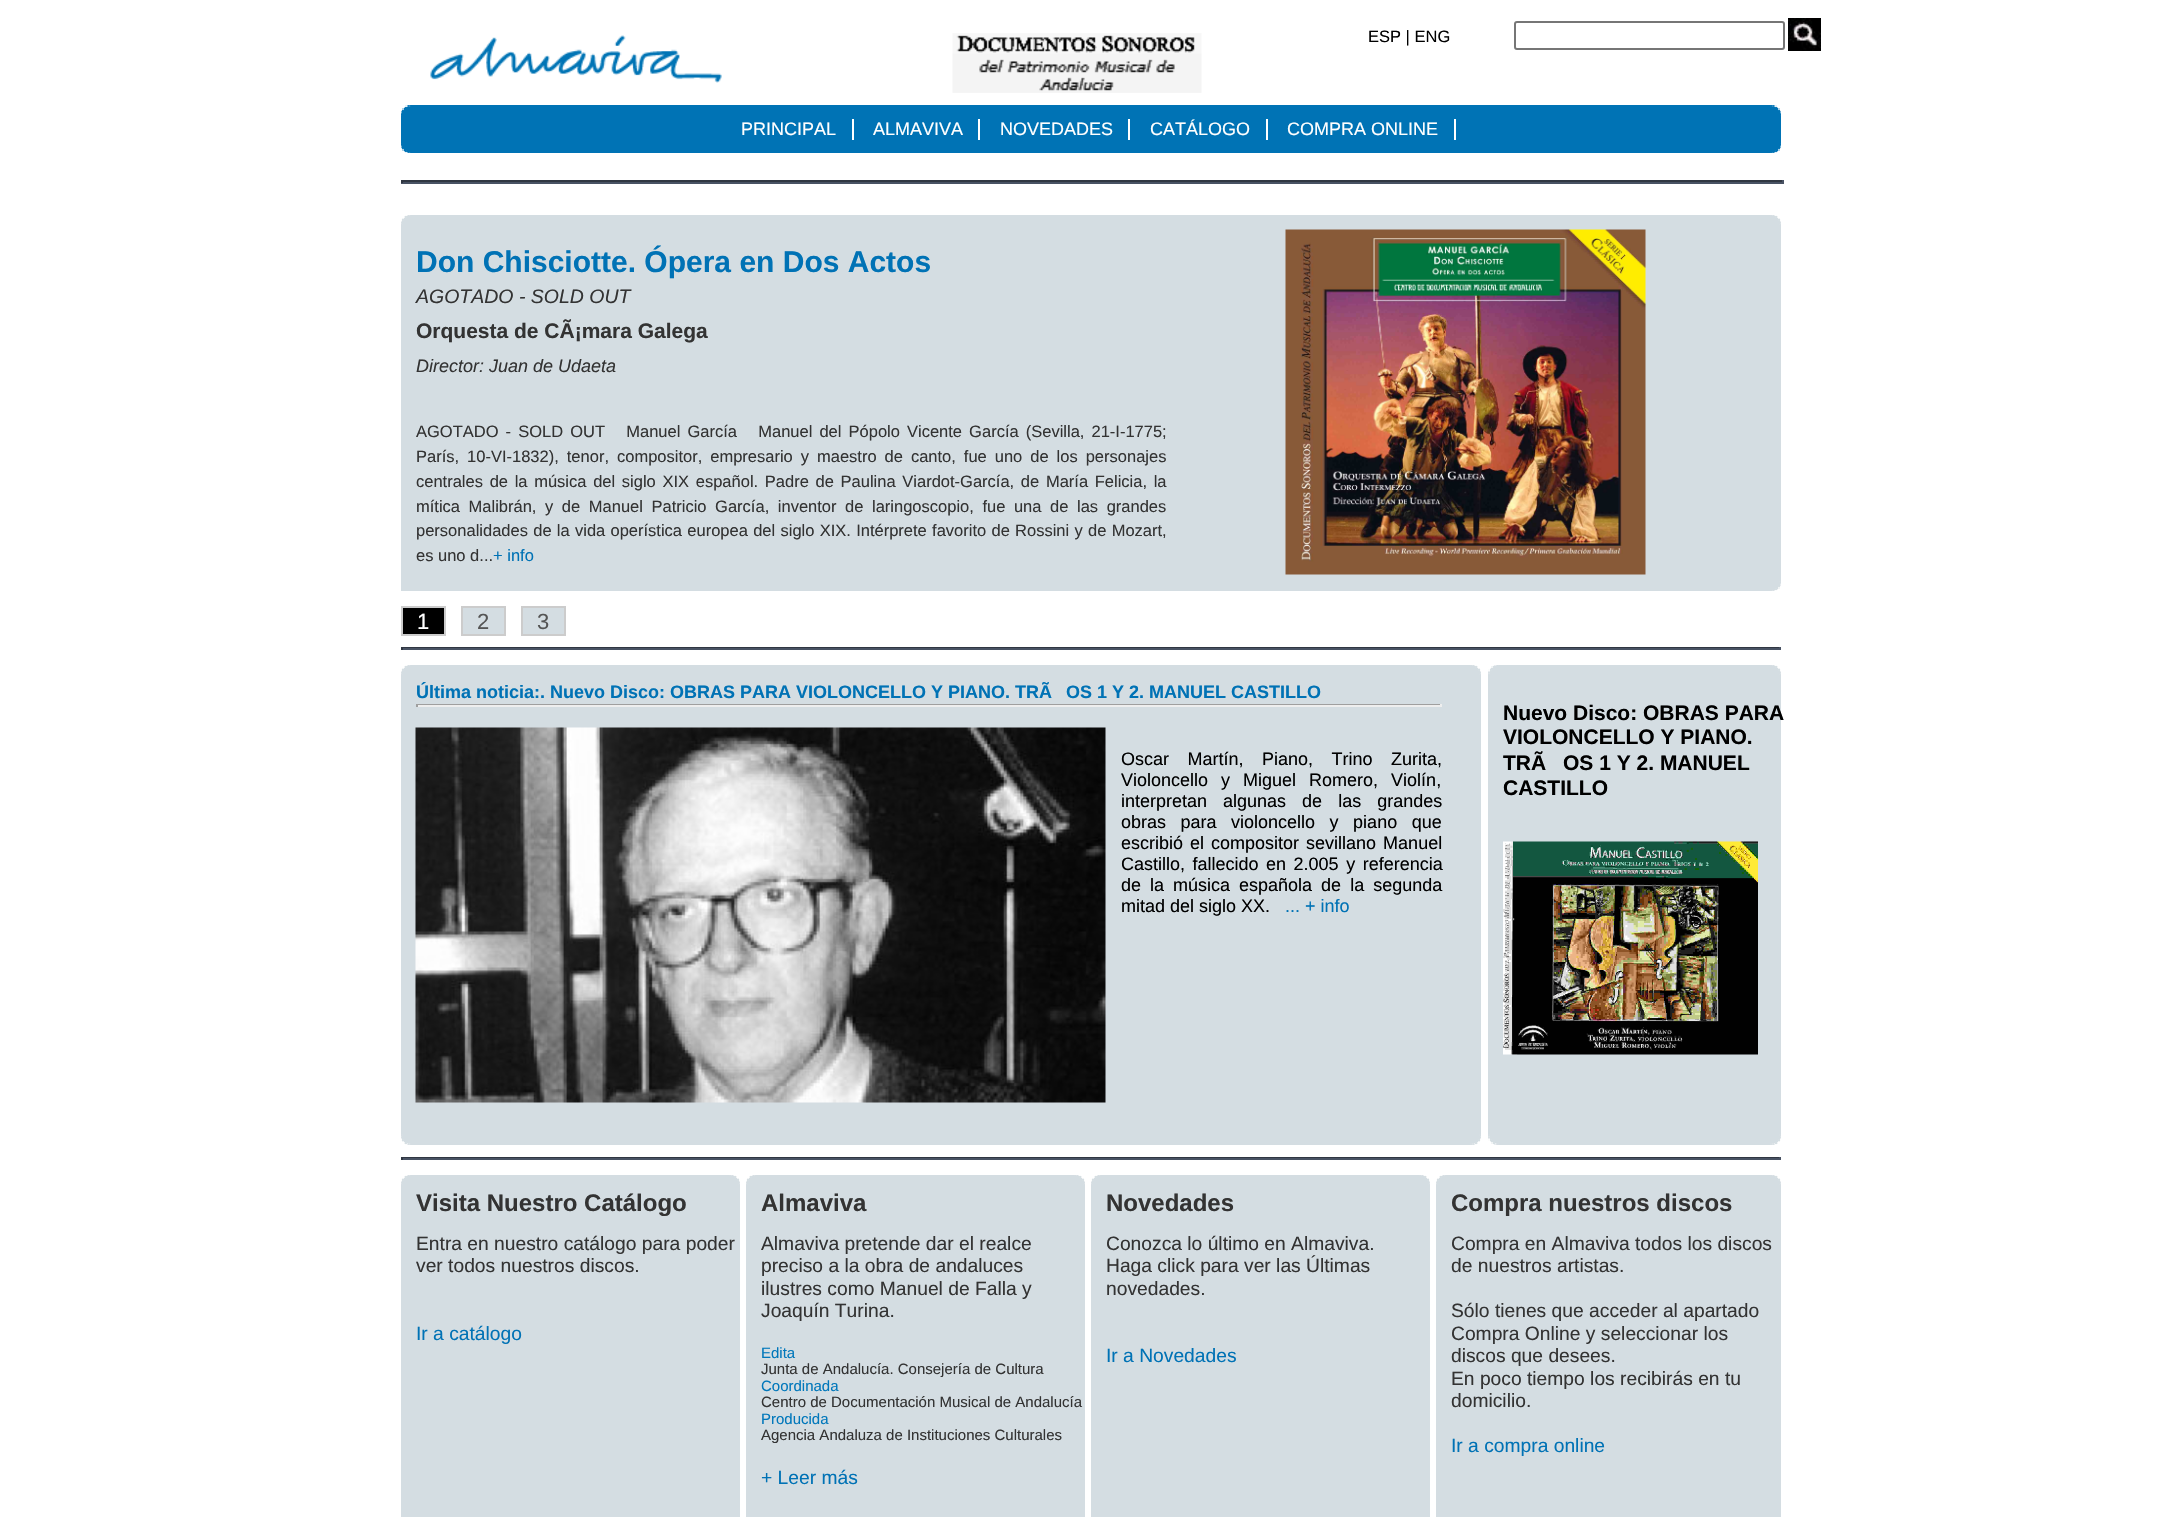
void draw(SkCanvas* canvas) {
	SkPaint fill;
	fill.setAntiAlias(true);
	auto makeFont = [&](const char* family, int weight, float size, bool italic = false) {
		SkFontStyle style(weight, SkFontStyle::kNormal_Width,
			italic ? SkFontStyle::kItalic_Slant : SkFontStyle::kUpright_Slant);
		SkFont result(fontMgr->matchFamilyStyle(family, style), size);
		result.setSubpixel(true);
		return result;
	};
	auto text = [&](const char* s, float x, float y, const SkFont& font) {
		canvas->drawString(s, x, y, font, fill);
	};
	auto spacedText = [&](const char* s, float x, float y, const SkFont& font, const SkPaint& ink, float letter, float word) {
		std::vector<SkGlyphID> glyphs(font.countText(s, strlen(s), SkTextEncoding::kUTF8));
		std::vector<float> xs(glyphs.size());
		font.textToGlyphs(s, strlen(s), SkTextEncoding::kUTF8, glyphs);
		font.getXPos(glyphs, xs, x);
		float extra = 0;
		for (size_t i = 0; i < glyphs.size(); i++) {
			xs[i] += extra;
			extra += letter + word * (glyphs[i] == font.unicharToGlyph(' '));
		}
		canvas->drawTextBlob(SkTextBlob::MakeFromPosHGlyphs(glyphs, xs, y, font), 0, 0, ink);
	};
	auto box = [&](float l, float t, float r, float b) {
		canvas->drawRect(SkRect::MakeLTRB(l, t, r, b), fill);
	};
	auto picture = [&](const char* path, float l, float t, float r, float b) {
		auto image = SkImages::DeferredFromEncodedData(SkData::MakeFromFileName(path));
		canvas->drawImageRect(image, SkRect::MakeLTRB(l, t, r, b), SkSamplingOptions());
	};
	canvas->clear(0xFFFFFFFF);
	fill.setColor(0xFFFBFCFC);
	box(1779, 1179, 1781, 1181);
	fill.setColor(0xFFE9EDF0);
	box(1779, 1181, 1781, 1182);
	fill.setColor(0xFFDCE3E7);
	box(1779, 1183, 1781, 1184);
	fill.setColor(0xFFD8E0E4);
	box(1779, 1182, 1781, 1183);
	fill.setColor(0xFFD6DEE3);
	box(1779, 1184, 1781, 1185);
	fill.setColor(0xFFF1F4F5);
	box(1778, 1178, 1780, 1179);
	box(1776, 1176, 1778, 1178);
	fill.setColor(0xFFD4DDE2);
	box(1776, 1178, 1778, 1179);
	fill.setColor(0xFFFBFCFC);
	box(1775, 1175, 1777, 1176);
	fill.setColor(0xFFE9EDF0);
	box(1773, 1175, 1775, 1176);
	fill.setColor(0xFFDCE3E7);
	box(1772, 1175, 1774, 1176);
	fill.setColor(0xFFD8E0E4);
	box(1773, 1175, 1774, 1177);
	fill.setColor(0xFFD6DEE3);
	box(1770, 1175, 1772, 1176);
	fill.setColor(0xFFFBFCFC);
	box(1436, 1179, 1438, 1181);
	fill.setColor(0xFFE9EDF0);
	box(1436, 1181, 1438, 1182);
	fill.setColor(0xFFDCE3E7);
	box(1436, 1183, 1438, 1184);
	fill.setColor(0xFFD8E0E4);
	box(1436, 1182, 1438, 1183);
	fill.setColor(0xFFD6DEE3);
	box(1436, 1184, 1438, 1185);
	fill.setColor(0xFFF1F4F5);
	box(1437, 1178, 1439, 1179);
	box(1439, 1176, 1441, 1178);
	fill.setColor(0xFFD4DDE2);
	box(1439, 1178, 1441, 1179);
	fill.setColor(0xFFFBFCFC);
	box(1440, 1175, 1442, 1176);
	fill.setColor(0xFFE9EDF0);
	box(1442, 1175, 1444, 1176);
	fill.setColor(0xFFDCE3E7);
	box(1443, 1175, 1445, 1176);
	fill.setColor(0xFFD8E0E4);
	box(1443, 1175, 1444, 1177);
	fill.setColor(0xFFD6DEE3);
	box(1445, 1175, 1446, 1177);
	fill.setColor(0xFFFBFCFC);
	box(1428, 1179, 1430, 1181);
	fill.setColor(0xFFE9EDF0);
	box(1428, 1181, 1430, 1182);
	fill.setColor(0xFFDCE3E7);
	box(1428, 1183, 1430, 1184);
	fill.setColor(0xFFD8E0E4);
	box(1428, 1182, 1430, 1183);
	fill.setColor(0xFFD6DEE3);
	box(1428, 1184, 1430, 1185);
	fill.setColor(0xFFF1F4F5);
	box(1427, 1178, 1429, 1179);
	box(1425, 1176, 1427, 1178);
	fill.setColor(0xFFD4DDE2);
	box(1425, 1178, 1427, 1179);
	fill.setColor(0xFFFBFCFC);
	box(1424, 1175, 1426, 1176);
	fill.setColor(0xFFE9EDF0);
	box(1422, 1175, 1424, 1176);
	fill.setColor(0xFFDCE3E7);
	box(1421, 1175, 1423, 1176);
	fill.setColor(0xFFD8E0E4);
	box(1422, 1175, 1423, 1177);
	fill.setColor(0xFFD6DEE3);
	box(1419, 1175, 1421, 1176);
	fill.setColor(0xFFFBFCFC);
	box(1091, 1179, 1093, 1181);
	fill.setColor(0xFFE9EDF0);
	box(1091, 1181, 1093, 1182);
	fill.setColor(0xFFDCE3E7);
	box(1091, 1183, 1093, 1184);
	fill.setColor(0xFFD8E0E4);
	box(1091, 1182, 1093, 1183);
	fill.setColor(0xFFD6DEE3);
	box(1091, 1184, 1093, 1185);
	fill.setColor(0xFFF1F4F5);
	box(1092, 1178, 1094, 1179);
	box(1094, 1176, 1096, 1178);
	fill.setColor(0xFFD4DDE2);
	box(1094, 1178, 1096, 1179);
	fill.setColor(0xFFFBFCFC);
	box(1095, 1175, 1097, 1176);
	fill.setColor(0xFFE9EDF0);
	box(1097, 1175, 1099, 1176);
	fill.setColor(0xFFDCE3E7);
	box(1098, 1175, 1100, 1176);
	fill.setColor(0xFFD8E0E4);
	box(1098, 1175, 1099, 1177);
	fill.setColor(0xFFD6DEE3);
	box(1100, 1175, 1101, 1177);
	fill.setColor(0xFFFBFCFC);
	box(1083, 1179, 1085, 1181);
	fill.setColor(0xFFE9EDF0);
	box(1083, 1181, 1085, 1182);
	fill.setColor(0xFFDCE3E7);
	box(1083, 1183, 1085, 1184);
	fill.setColor(0xFFD8E0E4);
	box(1083, 1182, 1085, 1183);
	fill.setColor(0xFFD6DEE3);
	box(1083, 1184, 1085, 1185);
	fill.setColor(0xFFF1F4F5);
	box(1082, 1178, 1084, 1179);
	box(1080, 1176, 1082, 1178);
	fill.setColor(0xFFD4DDE2);
	box(1080, 1178, 1082, 1179);
	fill.setColor(0xFFFBFCFC);
	box(1079, 1175, 1081, 1176);
	fill.setColor(0xFFE9EDF0);
	box(1077, 1175, 1079, 1176);
	fill.setColor(0xFFDCE3E7);
	box(1076, 1175, 1078, 1176);
	fill.setColor(0xFFD8E0E4);
	box(1077, 1175, 1078, 1177);
	fill.setColor(0xFFD6DEE3);
	box(1074, 1175, 1076, 1176);
	fill.setColor(0xFFFBFCFC);
	box(746, 1179, 748, 1181);
	fill.setColor(0xFFE9EDF0);
	box(746, 1181, 748, 1182);
	fill.setColor(0xFFDCE3E7);
	box(746, 1183, 748, 1184);
	fill.setColor(0xFFD8E0E4);
	box(746, 1182, 748, 1183);
	fill.setColor(0xFFD6DEE3);
	box(746, 1184, 748, 1185);
	fill.setColor(0xFFF1F4F5);
	box(747, 1178, 749, 1179);
	box(749, 1176, 751, 1178);
	fill.setColor(0xFFD4DDE2);
	box(749, 1178, 751, 1179);
	fill.setColor(0xFFFBFCFC);
	box(750, 1175, 752, 1176);
	fill.setColor(0xFFE9EDF0);
	box(752, 1175, 754, 1176);
	fill.setColor(0xFFDCE3E7);
	box(753, 1175, 755, 1176);
	fill.setColor(0xFFD8E0E4);
	box(753, 1175, 754, 1177);
	fill.setColor(0xFFD6DEE3);
	box(755, 1175, 756, 1177);
	fill.setColor(0xFFFBFCFC);
	box(738, 1179, 740, 1181);
	fill.setColor(0xFFE9EDF0);
	box(738, 1181, 740, 1182);
	fill.setColor(0xFFDCE3E7);
	box(738, 1183, 740, 1184);
	fill.setColor(0xFFD8E0E4);
	box(738, 1182, 740, 1183);
	fill.setColor(0xFFD6DEE3);
	box(738, 1184, 740, 1185);
	fill.setColor(0xFFF1F4F5);
	box(737, 1178, 739, 1179);
	box(735, 1176, 737, 1178);
	fill.setColor(0xFFD4DDE2);
	box(735, 1178, 737, 1179);
	fill.setColor(0xFFFBFCFC);
	box(734, 1175, 736, 1176);
	fill.setColor(0xFFE9EDF0);
	box(732, 1175, 734, 1176);
	fill.setColor(0xFFDCE3E7);
	box(731, 1175, 733, 1176);
	fill.setColor(0xFFD8E0E4);
	box(732, 1175, 733, 1177);
	fill.setColor(0xFFD6DEE3);
	box(729, 1175, 731, 1176);
	fill.setColor(0xFFFBFCFC);
	box(401, 1179, 403, 1181);
	fill.setColor(0xFFE9EDF0);
	box(401, 1181, 403, 1182);
	fill.setColor(0xFFDCE3E7);
	box(401, 1183, 403, 1184);
	fill.setColor(0xFFD8E0E4);
	box(401, 1182, 403, 1183);
	fill.setColor(0xFFD6DEE3);
	box(401, 1184, 403, 1185);
	fill.setColor(0xFFF1F4F5);
	box(402, 1178, 404, 1179);
	box(404, 1176, 406, 1178);
	fill.setColor(0xFFD4DDE2);
	box(404, 1178, 406, 1179);
	fill.setColor(0xFFFBFCFC);
	box(405, 1175, 407, 1176);
	fill.setColor(0xFFE9EDF0);
	box(407, 1175, 409, 1176);
	fill.setColor(0xFFDCE3E7);
	box(408, 1175, 410, 1176);
	fill.setColor(0xFFD8E0E4);
	box(408, 1175, 409, 1177);
	fill.setColor(0xFFD6DEE3);
	box(410, 1175, 411, 1177);
	fill.setColor(0xFFFBFCFC);
	box(1779, 1139, 1781, 1141);
	fill.setColor(0xFFE9EDF0);
	box(1779, 1138, 1781, 1139);
	fill.setColor(0xFFDCE3E7);
	box(1779, 1136, 1781, 1137);
	fill.setColor(0xFFD8E0E4);
	box(1779, 1137, 1781, 1138);
	fill.setColor(0xFFD6DEE3);
	box(1779, 1134, 1781, 1136);
	fill.setColor(0xFFF1F4F5);
	box(1778, 1141, 1780, 1142);
	box(1776, 1142, 1778, 1144);
	fill.setColor(0xFFD4DDE2);
	box(1776, 1140, 1778, 1142);
	fill.setColor(0xFFFBFCFC);
	box(1775, 1144, 1777, 1145);
	fill.setColor(0xFFE9EDF0);
	box(1773, 1143, 1775, 1145);
	box(1488, 1138, 1490, 1139);
	fill.setColor(0xFFF1F4F5);
	box(1490, 1141, 1492, 1142);
	fill.setColor(0xFFD6DFE3);
	box(1490, 1139, 1492, 1140);
	fill.setColor(0xFFD5DEE3);
	box(1490, 1140, 1492, 1141);
	fill.setColor(0xFFFBFCFC);
	box(1493, 1144, 1495, 1145);
	fill.setColor(0xFFD6DFE3);
	box(1493, 1142, 1495, 1144);
	fill.setColor(0xFFDCE3E7);
	box(1496, 1143, 1498, 1145);
	fill.setColor(0xFFFBFCFC);
	box(1779, 669, 1781, 671);
	fill.setColor(0xFFE9EDF0);
	box(1779, 671, 1781, 672);
	fill.setColor(0xFFDCE3E7);
	box(1779, 673, 1781, 674);
	fill.setColor(0xFFD8E0E4);
	box(1779, 672, 1781, 673);
	fill.setColor(0xFFD6DEE3);
	box(1779, 674, 1781, 675);
	fill.setColor(0xFFF1F4F5);
	box(1778, 668, 1780, 669);
	box(1776, 666, 1778, 668);
	fill.setColor(0xFFD4DDE2);
	box(1776, 668, 1778, 669);
	fill.setColor(0xFFFBFCFC);
	box(1775, 665, 1777, 666);
	fill.setColor(0xFFE9EDF0);
	box(1773, 665, 1775, 666);
	fill.setColor(0xFFDCE3E7);
	box(1772, 665, 1774, 666);
	fill.setColor(0xFFD8E0E4);
	box(1773, 665, 1774, 667);
	fill.setColor(0xFFD6DEE3);
	box(1770, 665, 1772, 666);
	fill.setColor(0xFFE9EDF0);
	box(1488, 671, 1490, 672);
	fill.setColor(0xFFF1F4F5);
	box(1490, 668, 1492, 669);
	fill.setColor(0xFFD6DFE3);
	box(1490, 670, 1492, 671);
	fill.setColor(0xFFD5DEE3);
	box(1490, 669, 1492, 670);
	fill.setColor(0xFFD4DDE2);
	box(1491, 668, 1493, 669);
	fill.setColor(0xFFFBFCFC);
	box(1493, 665, 1495, 666);
	fill.setColor(0xFFD6DFE3);
	box(1493, 666, 1495, 668);
	fill.setColor(0xFFE9EDF0);
	box(1494, 665, 1496, 666);
	fill.setColor(0xFFE7EBEF);
	box(1494, 665, 1495, 667);
	fill.setColor(0xFFDCE3E7);
	box(1496, 665, 1498, 666);
	fill.setColor(0xFFD6DEE3);
	box(1497, 665, 1499, 666);
	fill.setColor(0xFFD4DDE2);
	box(1497, 665, 1498, 667);
	fill.setColor(0xFFFBFCFC);
	box(1479, 1139, 1481, 1141);
	fill.setColor(0xFFE9EDF0);
	box(1479, 1138, 1481, 1139);
	fill.setColor(0xFFDCE3E7);
	box(1479, 1136, 1481, 1137);
	fill.setColor(0xFFD8E0E4);
	box(1479, 1137, 1481, 1138);
	fill.setColor(0xFFD6DEE3);
	box(1479, 1134, 1481, 1136);
	fill.setColor(0xFFF1F4F5);
	box(1478, 1141, 1480, 1142);
	box(1476, 1142, 1478, 1144);
	fill.setColor(0xFFD4DDE2);
	box(1476, 1140, 1478, 1142);
	fill.setColor(0xFFFBFCFC);
	box(1475, 1144, 1477, 1145);
	fill.setColor(0xFFE9EDF0);
	box(1473, 1143, 1475, 1145);
	fill.setColor(0xFFFBFCFC);
	box(401, 1139, 403, 1141);
	fill.setColor(0xFFE9EDF0);
	box(401, 1138, 403, 1139);
	fill.setColor(0xFFDCE3E7);
	box(401, 1136, 403, 1137);
	fill.setColor(0xFFD8E0E4);
	box(401, 1137, 403, 1138);
	fill.setColor(0xFFD6DEE3);
	box(401, 1134, 403, 1136);
	fill.setColor(0xFFF1F4F5);
	box(402, 1141, 404, 1142);
	box(404, 1142, 406, 1144);
	fill.setColor(0xFFD4DDE2);
	box(404, 1140, 406, 1142);
	fill.setColor(0xFFFBFCFC);
	box(405, 1144, 407, 1145);
	fill.setColor(0xFFE9EDF0);
	box(407, 1143, 409, 1145);
	fill.setColor(0xFFFBFCFC);
	box(1479, 669, 1481, 671);
	fill.setColor(0xFFE9EDF0);
	box(1479, 671, 1481, 672);
	fill.setColor(0xFFDCE3E7);
	box(1479, 673, 1481, 674);
	fill.setColor(0xFFD8E0E4);
	box(1479, 672, 1481, 673);
	fill.setColor(0xFFD6DEE3);
	box(1479, 674, 1481, 675);
	fill.setColor(0xFFF1F4F5);
	box(1478, 668, 1480, 669);
	box(1476, 666, 1478, 668);
	fill.setColor(0xFFD4DDE2);
	box(1476, 668, 1478, 669);
	fill.setColor(0xFFFBFCFC);
	box(1475, 665, 1477, 666);
	fill.setColor(0xFFE9EDF0);
	box(1473, 665, 1475, 666);
	fill.setColor(0xFFDCE3E7);
	box(1472, 665, 1474, 666);
	fill.setColor(0xFFD8E0E4);
	box(1473, 665, 1474, 667);
	fill.setColor(0xFFD6DEE3);
	box(1470, 665, 1472, 666);
	fill.setColor(0xFFFBFCFC);
	box(401, 669, 403, 671);
	fill.setColor(0xFFE9EDF0);
	box(401, 671, 403, 672);
	fill.setColor(0xFFDCE3E7);
	box(401, 673, 403, 674);
	fill.setColor(0xFFD8E0E4);
	box(401, 672, 403, 673);
	fill.setColor(0xFFD6DEE3);
	box(401, 674, 403, 675);
	fill.setColor(0xFFF1F4F5);
	box(402, 668, 404, 669);
	box(404, 666, 406, 668);
	fill.setColor(0xFFD4DDE2);
	box(404, 668, 406, 669);
	fill.setColor(0xFFFBFCFC);
	box(405, 665, 407, 666);
	fill.setColor(0xFFE9EDF0);
	box(407, 665, 409, 666);
	fill.setColor(0xFFDCE3E7);
	box(408, 665, 410, 666);
	fill.setColor(0xFFD8E0E4);
	box(408, 665, 409, 667);
	fill.setColor(0xFFD6DEE3);
	box(410, 665, 411, 667);
	fill.setColor(0xFFFBFCFC);
	box(1779, 586, 1781, 587);
	fill.setColor(0xFFE9EDF0);
	box(1779, 584, 1781, 585);
	fill.setColor(0xFFE7EBEF);
	box(1779, 585, 1781, 586);
	fill.setColor(0xFFDCE3E7);
	box(1779, 583, 1781, 584);
	fill.setColor(0xFFD6DEE3);
	box(1779, 581, 1781, 582);
	fill.setColor(0xFFD4DDE2);
	box(1779, 582, 1781, 583);
	fill.setColor(0xFFD6DFE3);
	box(1778, 586, 1780, 587);
	box(1779, 585, 1780, 587);
	fill.setColor(0xFFF1F4F5);
	box(1776, 589, 1778, 590);
	fill.setColor(0xFFD4DDE2);
	box(1776, 581, 1778, 589);
	fill.setColor(0xFFE9EDF0);
	box(1773, 590, 1775, 591);
	fill.setColor(0xFFFBFCFC);
	box(1779, 219, 1781, 221);
	fill.setColor(0xFFE9EDF0);
	box(1779, 221, 1781, 222);
	fill.setColor(0xFFDCE3E7);
	box(1779, 223, 1781, 224);
	fill.setColor(0xFFD8E0E4);
	box(1779, 222, 1781, 223);
	fill.setColor(0xFFD6DEE3);
	box(1779, 224, 1781, 225);
	fill.setColor(0xFFF1F4F5);
	box(1778, 218, 1780, 219);
	box(1776, 216, 1778, 218);
	fill.setColor(0xFFD4DDE2);
	box(1776, 218, 1778, 219);
	fill.setColor(0xFFFBFCFC);
	box(1775, 215, 1777, 216);
	fill.setColor(0xFFE9EDF0);
	box(1773, 215, 1775, 216);
	fill.setColor(0xFFDCE3E7);
	box(1772, 215, 1774, 216);
	fill.setColor(0xFFD8E0E4);
	box(1773, 215, 1774, 217);
	fill.setColor(0xFFD6DEE3);
	box(1770, 215, 1772, 216);
	fill.setColor(0xFFFBFCFC);
	box(401, 219, 403, 221);
	fill.setColor(0xFFE9EDF0);
	box(401, 221, 403, 222);
	fill.setColor(0xFFDCE3E7);
	box(401, 223, 403, 224);
	fill.setColor(0xFFD8E0E4);
	box(401, 222, 403, 223);
	fill.setColor(0xFFD6DEE3);
	box(401, 224, 403, 225);
	fill.setColor(0xFFF1F4F5);
	box(402, 218, 404, 219);
	box(404, 216, 406, 218);
	fill.setColor(0xFFD4DDE2);
	box(404, 218, 406, 219);
	fill.setColor(0xFFFBFCFC);
	box(405, 215, 407, 216);
	fill.setColor(0xFFE9EDF0);
	box(407, 215, 409, 216);
	fill.setColor(0xFFDCE3E7);
	box(408, 215, 410, 216);
	fill.setColor(0xFFD8E0E4);
	box(408, 215, 409, 217);
	fill.setColor(0xFFD6DEE3);
	box(410, 215, 411, 217);
	fill.setColor(0xFFE6F1F8);
	box(1779, 148, 1781, 149);
	fill.setColor(0xFF7AB6D9);
	box(1779, 146, 1781, 147);
	fill.setColor(0xFF6EAFD5);
	box(1779, 147, 1781, 148);
	fill.setColor(0xFF2E8CC2);
	box(1779, 145, 1781, 146);
	fill.setColor(0xFF0A79B8);
	box(1779, 143, 1781, 144);
	fill.setColor(0xFF0274B6);
	box(1779, 144, 1781, 145);
	fill.setColor(0xFF0D7AB9);
	box(1778, 148, 1780, 149);
	fill.setColor(0xFF0C79B9);
	box(1779, 147, 1780, 149);
	fill.setColor(0xFFABD1E7);
	box(1776, 151, 1778, 152);
	fill.setColor(0xFF0073B5);
	box(1776, 143, 1778, 151);
	fill.setColor(0xFF7AB6D9);
	box(1773, 152, 1775, 153);
	fill.setColor(0xFFE6F1F8);
	box(401, 148, 403, 149);
	fill.setColor(0xFF7AB6D9);
	box(401, 146, 403, 147);
	fill.setColor(0xFF6EAFD5);
	box(401, 147, 403, 148);
	fill.setColor(0xFF2E8CC2);
	box(401, 145, 403, 146);
	fill.setColor(0xFF0A79B8);
	box(401, 143, 403, 144);
	fill.setColor(0xFF0274B6);
	box(401, 144, 403, 145);
	fill.setColor(0xFF0D7AB9);
	box(402, 148, 404, 149);
	fill.setColor(0xFF0C79B9);
	box(402, 147, 403, 149);
	fill.setColor(0xFFABD1E7);
	box(404, 151, 406, 152);
	fill.setColor(0xFF0073B5);
	box(404, 143, 406, 151);
	fill.setColor(0xFF7AB6D9);
	box(407, 152, 409, 153);
	fill.setColor(0xFFE6F1F8);
	box(1779, 110, 1781, 111);
	fill.setColor(0xFF7AB6D9);
	box(1779, 112, 1781, 113);
	fill.setColor(0xFF6EAFD5);
	box(1779, 111, 1781, 112);
	fill.setColor(0xFF2E8CC2);
	box(1779, 113, 1781, 114);
	fill.setColor(0xFF0A79B8);
	box(1779, 115, 1781, 116);
	fill.setColor(0xFF0274B6);
	box(1779, 114, 1781, 115);
	fill.setColor(0xFF0D7AB9);
	box(1778, 110, 1780, 111);
	fill.setColor(0xFF0C79B9);
	box(1779, 110, 1780, 112);
	fill.setColor(0xFFABD1E7);
	box(1776, 107, 1778, 108);
	fill.setColor(0xFF0073B5);
	box(1776, 108, 1778, 116);
	fill.setColor(0xFF0D7AB9);
	box(1775, 107, 1777, 108);
	fill.setColor(0xFF0978B8);
	box(1776, 107, 1777, 109);
	fill.setColor(0xFF7AB6D9);
	box(1773, 105, 1775, 107);
	fill.setColor(0xFFE6F1F8);
	box(401, 110, 403, 111);
	fill.setColor(0xFF7AB6D9);
	box(401, 112, 403, 113);
	fill.setColor(0xFF6EAFD5);
	box(401, 111, 403, 112);
	fill.setColor(0xFF2E8CC2);
	box(401, 113, 403, 114);
	fill.setColor(0xFF0A79B8);
	box(401, 115, 403, 116);
	fill.setColor(0xFF0274B6);
	box(401, 114, 403, 115);
	fill.setColor(0xFF0D7AB9);
	box(402, 110, 404, 111);
	fill.setColor(0xFF0C79B9);
	box(402, 110, 403, 112);
	fill.setColor(0xFFABD1E7);
	box(404, 107, 406, 108);
	fill.setColor(0xFF0073B5);
	box(404, 108, 406, 116);
	fill.setColor(0xFF0D7AB9);
	box(405, 107, 407, 108);
	fill.setColor(0xFF0978B8);
	box(405, 107, 406, 109);
	fill.setColor(0xFF7AB6D9);
	box(407, 105, 409, 107);
	picture("image0.png", 430, 35, 722, 83);
	picture("image1.png", 952, 33, 1202, 93);
	fill.setStyle(SkPaint::kStroke_Style);
	fill.setStrokeWidth(2);
	fill.setColor(0xFF767676);
	canvas->drawRoundRect(SkRect::MakeLTRB(1515, 22, 1784, 49), 2, 2, fill);
	picture("image2.png", 1788, 18, 1821, 51);
	fill.setStyle(SkPaint::kFill_Style);
	fill.setColor(0xFF0073B5);
	box(401, 116, 1781, 143);
	fill.setColor(0xFFE6F1F8);
	box(405, 105, 407, 107);
	fill.setColor(0xFF2E8CC2);
	box(408, 105, 410, 107);
	fill.setColor(0xFF167FBB);
	box(408, 105, 409, 107);
	fill.setColor(0xFF0978B8);
	box(410, 105, 411, 107);
	fill.setColor(0xFFAAD0E6);
	box(402, 108, 404, 110);
	fill.setColor(0xFF0073B5);
	box(406, 108, 407, 116);
	box(405, 108, 406, 110);
	box(407, 107, 411, 116);
	box(403, 111, 404, 116);
	box(402, 111, 403, 116);
	box(411, 105, 1770, 116);
	fill.setColor(0xFF0978B8);
	box(1770, 105, 1772, 107);
	fill.setColor(0xFF2E8CC2);
	box(1772, 105, 1774, 107);
	fill.setColor(0xFF167FBB);
	box(1773, 105, 1774, 107);
	fill.setColor(0xFFE6F1F8);
	box(1775, 105, 1777, 107);
	fill.setColor(0xFF0073B5);
	box(1770, 107, 1775, 116);
	box(1775, 108, 1776, 116);
	box(1776, 108, 1777, 110);
	fill.setColor(0xFFAAD0E6);
	box(1778, 108, 1780, 110);
	fill.setColor(0xFF0073B5);
	box(1778, 111, 1779, 116);
	box(1779, 111, 1780, 116);
	box(403, 143, 404, 148);
	box(402, 143, 403, 148);
	box(406, 143, 407, 150);
	box(407, 143, 411, 152);
	fill.setColor(0xFFAAD0E6);
	box(402, 149, 404, 151);
	fill.setColor(0xFF0D7AB9);
	box(405, 150, 407, 152);
	fill.setColor(0xFF0978B8);
	box(405, 150, 406, 152);
	fill.setColor(0xFF0073B5);
	box(405, 150, 406, 151);
	fill.setColor(0xFFE6F1F8);
	box(405, 152, 407, 153);
	fill.setColor(0xFF2E8CC2);
	box(408, 152, 410, 153);
	fill.setColor(0xFF167FBB);
	box(408, 152, 409, 153);
	fill.setColor(0xFF0978B8);
	box(410, 152, 411, 153);
	fill.setColor(0xFF0073B5);
	box(411, 143, 1770, 153);
	box(1770, 143, 1775, 152);
	box(1775, 143, 1776, 150);
	box(1778, 143, 1779, 148);
	box(1779, 143, 1780, 148);
	fill.setColor(0xFF0D7AB9);
	box(1775, 150, 1777, 152);
	fill.setColor(0xFF0978B8);
	box(1776, 150, 1777, 152);
	fill.setColor(0xFF0073B5);
	box(1776, 150, 1777, 151);
	fill.setColor(0xFFAAD0E6);
	box(1778, 149, 1780, 151);
	fill.setColor(0xFF0978B8);
	box(1770, 152, 1772, 153);
	fill.setColor(0xFF2E8CC2);
	box(1772, 152, 1774, 153);
	fill.setColor(0xFF167FBB);
	box(1773, 152, 1774, 153);
	fill.setColor(0xFFE6F1F8);
	box(1775, 152, 1777, 153);
	fill.setColor(0xFFFFFFFF);
	box(852, 119, 854, 140);
	box(978, 119, 980, 140);
	box(1128, 119, 1130, 140);
	box(1266, 119, 1268, 140);
	box(1454, 119, 1456, 140);
	fill.setColor(0xFF303742);
	box(401, 180, 1784, 182);
	fill.setColor(0xFF485263);
	box(1782, 180, 1784, 183);
	box(401, 182, 1784, 184);
	fill.setColor(0xFF303742);
	box(401, 180, 403, 183);
	fill.setColor(0xFFD4DDE2);
	box(401, 225, 1781, 581);
	fill.setColor(0xFFD6DFE3);
	box(405, 217, 407, 218);
	fill.setColor(0xFFD5DEE3);
	box(405, 216, 406, 218);
	fill.setColor(0xFFD6DFE3);
	box(405, 216, 407, 217);
	fill.setColor(0xFFD4DDE2);
	box(409, 216, 411, 225);
	box(408, 216, 410, 217);
	box(407, 216, 409, 225);
	fill.setColor(0xFFD6DFE3);
	box(402, 220, 404, 221);
	box(402, 219, 403, 221);
	fill.setColor(0xFFD5DEE3);
	box(402, 219, 404, 220);
	fill.setColor(0xFFD4DDE2);
	box(406, 218, 407, 225);
	box(405, 218, 406, 220);
	box(403, 221, 404, 225);
	box(402, 221, 403, 224);
	box(404, 219, 406, 225);
	box(411, 215, 1770, 225);
	box(1770, 216, 1773, 225);
	box(1772, 216, 1774, 217);
	box(1773, 216, 1775, 225);
	fill.setColor(0xFFD6DFE3);
	box(1775, 217, 1777, 218);
	fill.setColor(0xFFD5DEE3);
	box(1776, 216, 1777, 218);
	fill.setColor(0xFFD6DFE3);
	box(1775, 216, 1777, 217);
	fill.setColor(0xFFD4DDE2);
	box(1775, 218, 1776, 225);
	box(1776, 218, 1777, 220);
	box(1776, 219, 1778, 225);
	fill.setColor(0xFFD6DFE3);
	box(1778, 220, 1780, 221);
	box(1779, 219, 1780, 221);
	fill.setColor(0xFFD5DEE3);
	box(1778, 219, 1780, 220);
	fill.setColor(0xFFD4DDE2);
	box(1778, 221, 1779, 225);
	box(1779, 221, 1780, 224);
	box(401, 581, 1770, 591);
	box(1770, 581, 1775, 590);
	box(1775, 581, 1776, 588);
	box(1778, 581, 1779, 586);
	box(1779, 582, 1780, 586);
	fill.setColor(0xFFD6DFE3);
	box(1775, 588, 1777, 590);
	fill.setColor(0xFFF1F4F5);
	box(1778, 587, 1780, 589);
	fill.setColor(0xFFD6DEE3);
	box(1770, 590, 1772, 591);
	fill.setColor(0xFFDCE3E7);
	box(1772, 590, 1774, 591);
	fill.setColor(0xFFD8E0E4);
	box(1773, 590, 1774, 591);
	fill.setColor(0xFFFBFCFC);
	box(1775, 590, 1777, 591);
	picture("image3.png", 1285, 229, 1646, 575);
	fill.setColor(0xFF000000);
	canvas->drawRect(SkRect::MakeLTRB(402, 607, 445, 635), fill);
	fill.setStyle(SkPaint::kStroke_Style);
	fill.setColor(0xFFCCCCCC);
	canvas->drawRect(SkRect::MakeLTRB(402, 607, 445, 635), fill);
	fill.setStyle(SkPaint::kFill_Style);
	fill.setColor(0xFFD4DDE2);
	canvas->drawRect(SkRect::MakeLTRB(462, 607, 505, 635), fill);
	fill.setStyle(SkPaint::kStroke_Style);
	fill.setColor(0xFFCCCCCC);
	canvas->drawRect(SkRect::MakeLTRB(462, 607, 505, 635), fill);
	fill.setStyle(SkPaint::kFill_Style);
	fill.setColor(0xFFD4DDE2);
	canvas->drawRect(SkRect::MakeLTRB(522, 607, 565, 635), fill);
	fill.setStyle(SkPaint::kStroke_Style);
	fill.setColor(0xFFCCCCCC);
	canvas->drawRect(SkRect::MakeLTRB(522, 607, 565, 635), fill);
	fill.setStyle(SkPaint::kFill_Style);
	fill.setColor(0xFF303742);
	box(401, 647, 1781, 648);
	fill.setColor(0xFF485263);
	box(1779, 647, 1781, 650);
	box(401, 648, 1781, 650);
	fill.setColor(0xFF303742);
	box(401, 647, 403, 650);
	fill.setColor(0xFFD4DDE2);
	box(401, 675, 1481, 1134);
	fill.setColor(0xFFD6DFE3);
	box(405, 667, 407, 668);
	fill.setColor(0xFFD5DEE3);
	box(405, 666, 406, 668);
	fill.setColor(0xFFD6DFE3);
	box(405, 666, 407, 667);
	fill.setColor(0xFFD4DDE2);
	box(409, 666, 411, 675);
	box(408, 666, 410, 667);
	box(407, 666, 409, 675);
	fill.setColor(0xFFD6DFE3);
	box(402, 670, 404, 671);
	box(402, 669, 403, 671);
	fill.setColor(0xFFD5DEE3);
	box(402, 669, 404, 670);
	fill.setColor(0xFFD4DDE2);
	box(406, 668, 407, 675);
	box(405, 668, 406, 670);
	box(403, 671, 404, 675);
	box(402, 671, 403, 674);
	box(404, 669, 406, 675);
	box(411, 665, 1470, 675);
	box(1470, 666, 1473, 675);
	box(1472, 666, 1474, 667);
	box(1473, 666, 1475, 675);
	fill.setColor(0xFFD6DFE3);
	box(1475, 667, 1477, 668);
	fill.setColor(0xFFD5DEE3);
	box(1476, 666, 1477, 668);
	fill.setColor(0xFFD6DFE3);
	box(1475, 666, 1477, 667);
	fill.setColor(0xFFD4DDE2);
	box(1475, 668, 1476, 675);
	box(1476, 668, 1477, 670);
	box(1476, 669, 1478, 675);
	fill.setColor(0xFFD6DFE3);
	box(1478, 670, 1480, 671);
	box(1479, 669, 1480, 671);
	fill.setColor(0xFFD5DEE3);
	box(1478, 669, 1480, 670);
	fill.setColor(0xFFD4DDE2);
	box(1478, 671, 1479, 675);
	box(1479, 671, 1480, 674);
	box(403, 1134, 404, 1139);
	box(402, 1136, 403, 1139);
	box(404, 1134, 406, 1140);
	box(406, 1134, 407, 1142);
	box(407, 1134, 411, 1143);
	fill.setColor(0xFFD6DFE3);
	box(402, 1139, 404, 1140);
	box(402, 1139, 403, 1141);
	fill.setColor(0xFFD5DEE3);
	box(402, 1140, 404, 1141);
	fill.setColor(0xFFD6DFE3);
	box(405, 1142, 407, 1143);
	fill.setColor(0xFFD5DEE3);
	box(405, 1142, 406, 1144);
	fill.setColor(0xFFD6DFE3);
	box(405, 1143, 407, 1144);
	fill.setColor(0xFFDCE3E7);
	box(408, 1143, 410, 1145);
	fill.setColor(0xFFD8E0E4);
	box(408, 1143, 409, 1145);
	fill.setColor(0xFFD6DEE3);
	box(410, 1143, 411, 1145);
	fill.setColor(0xFFD4DDE2);
	box(411, 1134, 1470, 1145);
	box(1470, 1134, 1475, 1143);
	box(1475, 1134, 1476, 1142);
	box(1476, 1134, 1478, 1140);
	box(1478, 1134, 1479, 1139);
	box(1479, 1136, 1480, 1139);
	fill.setColor(0xFFD6DFE3);
	box(1478, 1139, 1480, 1140);
	box(1479, 1139, 1480, 1141);
	fill.setColor(0xFFD5DEE3);
	box(1478, 1140, 1480, 1141);
	fill.setColor(0xFFD6DEE3);
	box(1470, 1143, 1472, 1145);
	fill.setColor(0xFFDCE3E7);
	box(1472, 1143, 1474, 1145);
	fill.setColor(0xFFD8E0E4);
	box(1473, 1143, 1474, 1145);
	fill.setColor(0xFFD6DFE3);
	box(1475, 1142, 1477, 1143);
	fill.setColor(0xFFD5DEE3);
	box(1476, 1142, 1477, 1144);
	fill.setColor(0xFFD6DFE3);
	box(1475, 1143, 1477, 1144);
	fill.setColor(0xFF9F9F9F);
	box(416, 704, 1442, 705);
	fill.setColor(0xFFEEEEEE);
	box(1440, 704, 1442, 707);
	box(416, 705, 1442, 707);
	fill.setColor(0xFF9F9F9F);
	box(416, 704, 418, 707);
	picture("image4.png", 415, 727, 1106, 1103);
	fill.setColor(0xFFD4DDE2);
	box(1488, 675, 1781, 1134);
	fill.setColor(0xFFF1F4F5);
	box(1491, 666, 1493, 668);
	fill.setColor(0xFFD4DDE2);
	box(1494, 666, 1495, 668);
	box(1495, 666, 1499, 675);
	fill.setColor(0xFFFBFCFC);
	box(1488, 669, 1490, 671);
	fill.setColor(0xFFD4DDE2);
	box(1490, 671, 1492, 675);
	box(1492, 669, 1493, 675);
	box(1493, 668, 1495, 675);
	fill.setColor(0xFFDCE3E7);
	box(1488, 673, 1490, 674);
	fill.setColor(0xFFD8E0E4);
	box(1488, 672, 1490, 673);
	fill.setColor(0xFFD6DEE3);
	box(1488, 674, 1490, 675);
	fill.setColor(0xFFD4DDE2);
	box(1499, 665, 1770, 675);
	box(1770, 666, 1773, 675);
	box(1772, 666, 1774, 667);
	box(1773, 666, 1775, 675);
	fill.setColor(0xFFD6DFE3);
	box(1775, 667, 1777, 668);
	fill.setColor(0xFFD5DEE3);
	box(1776, 666, 1777, 668);
	fill.setColor(0xFFD6DFE3);
	box(1775, 666, 1777, 667);
	fill.setColor(0xFFD4DDE2);
	box(1775, 668, 1776, 675);
	box(1776, 668, 1777, 670);
	box(1776, 669, 1778, 675);
	fill.setColor(0xFFD6DFE3);
	box(1778, 670, 1780, 671);
	box(1779, 669, 1780, 671);
	fill.setColor(0xFFD5DEE3);
	box(1778, 669, 1780, 670);
	fill.setColor(0xFFD4DDE2);
	box(1778, 671, 1779, 675);
	box(1779, 671, 1780, 674);
	fill.setColor(0xFFD6DEE3);
	box(1488, 1134, 1490, 1136);
	fill.setColor(0xFFD4DDE2);
	box(1490, 1134, 1492, 1139);
	box(1492, 1134, 1493, 1140);
	box(1493, 1134, 1495, 1142);
	box(1495, 1134, 1499, 1143);
	fill.setColor(0xFFDCE3E7);
	box(1488, 1136, 1490, 1137);
	fill.setColor(0xFFD8E0E4);
	box(1488, 1137, 1490, 1138);
	fill.setColor(0xFFFBFCFC);
	box(1488, 1139, 1490, 1141);
	fill.setColor(0xFFD4DDE2);
	box(1491, 1140, 1493, 1142);
	fill.setColor(0xFFF1F4F5);
	box(1491, 1142, 1493, 1144);
	fill.setColor(0xFFE9EDF0);
	box(1494, 1143, 1496, 1145);
	fill.setColor(0xFFD5DEE3);
	box(1494, 1143, 1495, 1144);
	fill.setColor(0xFFD6DEE3);
	box(1497, 1143, 1499, 1145);
	fill.setColor(0xFFD4DDE2);
	box(1499, 1134, 1770, 1145);
	box(1770, 1134, 1775, 1143);
	box(1775, 1134, 1776, 1142);
	box(1776, 1134, 1778, 1140);
	box(1778, 1134, 1779, 1139);
	box(1779, 1136, 1780, 1139);
	fill.setColor(0xFFD6DFE3);
	box(1778, 1139, 1780, 1140);
	box(1779, 1139, 1780, 1141);
	fill.setColor(0xFFD5DEE3);
	box(1778, 1140, 1780, 1141);
	fill.setColor(0xFFD6DEE3);
	box(1770, 1143, 1772, 1145);
	fill.setColor(0xFFDCE3E7);
	box(1772, 1143, 1774, 1145);
	fill.setColor(0xFFD8E0E4);
	box(1773, 1143, 1774, 1145);
	fill.setColor(0xFFD6DFE3);
	box(1775, 1142, 1777, 1143);
	fill.setColor(0xFFD5DEE3);
	box(1776, 1142, 1777, 1144);
	fill.setColor(0xFFD6DFE3);
	box(1775, 1143, 1777, 1144);
	picture("image5.png", 1503, 841, 1758, 1055);
	fill.setColor(0xFF303742);
	box(401, 1157, 1781, 1158);
	fill.setColor(0xFF485263);
	box(1779, 1157, 1781, 1160);
	box(401, 1158, 1781, 1160);
	fill.setColor(0xFF303742);
	box(401, 1157, 403, 1160);
	fill.setColor(0xFFD4DDE2);
	box(401, 1185, 740, 1517);
	fill.setColor(0xFFD6DFE3);
	box(405, 1177, 407, 1178);
	fill.setColor(0xFFD5DEE3);
	box(405, 1176, 406, 1178);
	fill.setColor(0xFFD6DFE3);
	box(405, 1176, 407, 1177);
	fill.setColor(0xFFD4DDE2);
	box(409, 1176, 411, 1185);
	box(408, 1176, 410, 1177);
	box(407, 1176, 409, 1185);
	fill.setColor(0xFFD6DFE3);
	box(402, 1180, 404, 1181);
	box(402, 1179, 403, 1181);
	fill.setColor(0xFFD5DEE3);
	box(402, 1179, 404, 1180);
	fill.setColor(0xFFD4DDE2);
	box(406, 1178, 407, 1185);
	box(405, 1178, 406, 1180);
	box(403, 1181, 404, 1185);
	box(402, 1181, 403, 1184);
	box(404, 1179, 406, 1185);
	box(411, 1175, 729, 1185);
	box(729, 1176, 732, 1185);
	box(731, 1176, 733, 1177);
	box(732, 1176, 734, 1185);
	fill.setColor(0xFFD6DFE3);
	box(734, 1177, 736, 1178);
	fill.setColor(0xFFD5DEE3);
	box(735, 1176, 736, 1178);
	fill.setColor(0xFFD6DFE3);
	box(734, 1176, 736, 1177);
	fill.setColor(0xFFD4DDE2);
	box(734, 1178, 735, 1185);
	box(735, 1178, 736, 1180);
	box(735, 1179, 737, 1185);
	fill.setColor(0xFFD6DFE3);
	box(737, 1180, 739, 1181);
	box(738, 1179, 739, 1181);
	fill.setColor(0xFFD5DEE3);
	box(737, 1179, 739, 1180);
	fill.setColor(0xFFD4DDE2);
	box(737, 1181, 738, 1185);
	box(738, 1181, 739, 1184);
	box(746, 1185, 1085, 1517);
	fill.setColor(0xFFD6DFE3);
	box(750, 1177, 752, 1178);
	fill.setColor(0xFFD5DEE3);
	box(750, 1176, 751, 1178);
	fill.setColor(0xFFD6DFE3);
	box(750, 1176, 752, 1177);
	fill.setColor(0xFFD4DDE2);
	box(754, 1176, 756, 1185);
	box(753, 1176, 755, 1177);
	box(752, 1176, 754, 1185);
	fill.setColor(0xFFD6DFE3);
	box(747, 1180, 749, 1181);
	box(747, 1179, 748, 1181);
	fill.setColor(0xFFD5DEE3);
	box(747, 1179, 749, 1180);
	fill.setColor(0xFFD4DDE2);
	box(751, 1178, 752, 1185);
	box(750, 1178, 751, 1180);
	box(748, 1181, 749, 1185);
	box(747, 1181, 748, 1184);
	box(749, 1179, 751, 1185);
	box(756, 1175, 1074, 1185);
	box(1074, 1176, 1077, 1185);
	box(1076, 1176, 1078, 1177);
	box(1077, 1176, 1079, 1185);
	fill.setColor(0xFFD6DFE3);
	box(1079, 1177, 1081, 1178);
	fill.setColor(0xFFD5DEE3);
	box(1080, 1176, 1081, 1178);
	fill.setColor(0xFFD6DFE3);
	box(1079, 1176, 1081, 1177);
	fill.setColor(0xFFD4DDE2);
	box(1079, 1178, 1080, 1185);
	box(1080, 1178, 1081, 1180);
	box(1080, 1179, 1082, 1185);
	fill.setColor(0xFFD6DFE3);
	box(1082, 1180, 1084, 1181);
	box(1083, 1179, 1084, 1181);
	fill.setColor(0xFFD5DEE3);
	box(1082, 1179, 1084, 1180);
	fill.setColor(0xFFD4DDE2);
	box(1082, 1181, 1083, 1185);
	box(1083, 1181, 1084, 1184);
	box(1091, 1185, 1430, 1517);
	fill.setColor(0xFFD6DFE3);
	box(1095, 1177, 1097, 1178);
	fill.setColor(0xFFD5DEE3);
	box(1095, 1176, 1096, 1178);
	fill.setColor(0xFFD6DFE3);
	box(1095, 1176, 1097, 1177);
	fill.setColor(0xFFD4DDE2);
	box(1099, 1176, 1101, 1185);
	box(1098, 1176, 1100, 1177);
	box(1097, 1176, 1099, 1185);
	fill.setColor(0xFFD6DFE3);
	box(1092, 1180, 1094, 1181);
	box(1092, 1179, 1093, 1181);
	fill.setColor(0xFFD5DEE3);
	box(1092, 1179, 1094, 1180);
	fill.setColor(0xFFD4DDE2);
	box(1096, 1178, 1097, 1185);
	box(1095, 1178, 1096, 1180);
	box(1093, 1181, 1094, 1185);
	box(1092, 1181, 1093, 1184);
	box(1094, 1179, 1096, 1185);
	box(1101, 1175, 1419, 1185);
	box(1419, 1176, 1422, 1185);
	box(1421, 1176, 1423, 1177);
	box(1422, 1176, 1424, 1185);
	fill.setColor(0xFFD6DFE3);
	box(1424, 1177, 1426, 1178);
	fill.setColor(0xFFD5DEE3);
	box(1425, 1176, 1426, 1178);
	fill.setColor(0xFFD6DFE3);
	box(1424, 1176, 1426, 1177);
	fill.setColor(0xFFD4DDE2);
	box(1424, 1178, 1425, 1185);
	box(1425, 1178, 1426, 1180);
	box(1425, 1179, 1427, 1185);
	fill.setColor(0xFFD6DFE3);
	box(1427, 1180, 1429, 1181);
	box(1428, 1179, 1429, 1181);
	fill.setColor(0xFFD5DEE3);
	box(1427, 1179, 1429, 1180);
	fill.setColor(0xFFD4DDE2);
	box(1427, 1181, 1428, 1185);
	box(1428, 1181, 1429, 1184);
	box(1436, 1185, 1781, 1517);
	fill.setColor(0xFFD6DFE3);
	box(1440, 1177, 1442, 1178);
	fill.setColor(0xFFD5DEE3);
	box(1440, 1176, 1441, 1178);
	fill.setColor(0xFFD6DFE3);
	box(1440, 1176, 1442, 1177);
	fill.setColor(0xFFD4DDE2);
	box(1444, 1176, 1446, 1185);
	box(1443, 1176, 1445, 1177);
	box(1442, 1176, 1444, 1185);
	fill.setColor(0xFFD6DFE3);
	box(1437, 1180, 1439, 1181);
	box(1437, 1179, 1438, 1181);
	fill.setColor(0xFFD5DEE3);
	box(1437, 1179, 1439, 1180);
	fill.setColor(0xFFD4DDE2);
	box(1441, 1178, 1442, 1185);
	box(1440, 1178, 1441, 1180);
	box(1438, 1181, 1439, 1185);
	box(1437, 1181, 1438, 1184);
	box(1439, 1179, 1441, 1185);
	box(1446, 1175, 1770, 1185);
	box(1770, 1176, 1773, 1185);
	box(1772, 1176, 1774, 1177);
	box(1773, 1176, 1775, 1185);
	fill.setColor(0xFFD6DFE3);
	box(1775, 1177, 1777, 1178);
	fill.setColor(0xFFD5DEE3);
	box(1776, 1176, 1777, 1178);
	fill.setColor(0xFFD6DFE3);
	box(1775, 1176, 1777, 1177);
	fill.setColor(0xFFD4DDE2);
	box(1775, 1178, 1776, 1185);
	box(1776, 1178, 1777, 1180);
	box(1776, 1179, 1778, 1185);
	fill.setColor(0xFFD6DFE3);
	box(1778, 1180, 1780, 1181);
	box(1779, 1179, 1780, 1181);
	fill.setColor(0xFFD5DEE3);
	box(1778, 1179, 1780, 1180);
	fill.setColor(0xFFD4DDE2);
	box(1778, 1181, 1779, 1185);
	box(1779, 1181, 1780, 1184);
	auto font1 = makeFont("Liberation Sans", 400, 16.5f);
	fill.setColor(0xFF000000);
	text("ESP | ENG", 1368, 42, font1);
	auto font2 = makeFont("Liberation Sans", 400, 18);
	fill.setColor(0xFFFFFFFF);
	text("PRINCIPAL", 741, 135, font2);
	text("ALMAVIVA", 873, 135, font2);
	text("NOVEDADES", 1000, 135, font2);
	text("CATÁLOGO", 1150, 135, font2);
	text("COMPRA ONLINE", 1287, 135, font2);
	auto font3 = makeFont("Liberation Sans", 700, 30);
	fill.setColor(0xFF0072B5);
	text("Don Chisciotte. Ópera en Dos Actos", 416, 272, font3);
	auto font4 = makeFont("Liberation Sans", 400, 19.5f, true);
	fill.setColor(0xFF333333);
	text("AGOTADO - SOLD OUT", 416, 303, font4);
	auto font5 = makeFont("Liberation Sans", 700, 21);
	text("Orquesta de CÃ¡mara Galega", 416, 338, font5);
	auto font6 = makeFont("Liberation Sans", 400, 18, true);
	text("Director: Juan de Udaeta", 416, 372, font6);
	spacedText("AGOTADO - SOLD OUT   Manuel García   Manuel del Pópolo Vicente García (Sevilla, 21-I-1775;", 416, 437, font1, fill, 0, 2.5f);
	spacedText("París, 10-VI-1832), tenor, compositor, empresario y maestro de canto, fue uno de los personajes", 416, 462, font1, fill, 0, 3.4f);
	spacedText("centrales de la música del siglo XIX español. Padre de Paulina Viardot-García, de María Felicia, la", 416, 487, font1, fill, 0, 2.1f);
	spacedText("mítica Malibrán, y de Manuel Patricio García, inventor de laringoscopio, fue una de las grandes", 416, 512, font1, fill, 0, 4);
	spacedText("personalidades de la vida operística europea del siglo XIX. Intérprete favorito de Rossini y de Mozart,", 416, 536, font1, fill, 0, 0.7f);
	text("es uno d...", 416, 561, font1);
	fill.setColor(0xFF0072B5);
	text("+ info", 493, 561, font1);
	auto font7 = makeFont("Liberation Sans", 400, 22);
	fill.setColor(0xFFFFFFFF);
	text("1", 417, 629, font7);
	fill.setColor(0xFF555555);
	text("2", 477, 629, font7);
	text("3", 537, 629, font7);
	auto font8 = makeFont("Liberation Sans", 700, 18);
	fill.setColor(0xFF0072B5);
	text("Última noticia:. Nuevo Disco: OBRAS PARA VIOLONCELLO Y PIANO. TRÃ", 416, 698, font8);
	text("OS 1 Y 2. MANUEL CASTILLO", 1066, 698, font8);
	fill.setColor(0xFF000000);
	spacedText("Oscar Martín, Piano, Trino Zurita,", 1121, 765, font2, fill, 0, 13.5f);
	spacedText("Violoncello y Miguel Romero, Violín,", 1121, 786, font2, fill, 0, 8);
	spacedText("interpretan algunas de las grandes", 1121, 807, font2, fill, 0, 11);
	spacedText("obras para violoncello y piano que", 1121, 828, font2, fill, 0, 9.5f);
	spacedText("escribió el compositor sevillano Manuel", 1121, 849, font2, fill, 0, 2);
	spacedText("Castillo, fallecido en 2.005 y referencia", 1121, 870, font2, fill, 0, 2.5f);
	spacedText("de la música española de la segunda", 1121, 891, font2, fill, 0, 4);
	text("mitad del siglo XX.", 1121, 912, font2);
	fill.setColor(0xFF0072B5);
	text("... + info", 1285, 912, font2);
	fill.setColor(0xFF000000);
	text("Nuevo Disco: OBRAS PARA", 1503, 720, font5);
	text("VIOLONCELLO Y PIANO.", 1503, 744, font5);
	text("TRÃ", 1503, 770, font5);
	text("OS 1 Y 2. MANUEL", 1563, 770, font5);
	text("CASTILLO", 1503, 795, font5);
	auto font9 = makeFont("Liberation Sans", 700, 24);
	fill.setColor(0xFF333333);
	text("Visita Nuestro Catálogo", 416, 1211, font9);
	auto font10 = makeFont("Liberation Sans", 400, 19.25f);
	text("Entra en nuestro catálogo para poder", 416, 1250, font10);
	text("ver todos nuestros discos.", 416, 1272, font10);
	fill.setColor(0xFF0072B5);
	text("Ir a catálogo", 416, 1340, font10);
	fill.setColor(0xFF333333);
	text("Almaviva", 761, 1211, font9);
	text("Almaviva pretende dar el realce", 761, 1250, font10);
	text("preciso a la obra de andaluces", 761, 1272, font10);
	text("ilustres como Manuel de Falla y", 761, 1295, font10);
	text("Joaquín Turina.", 761, 1317, font10);
	auto font11 = makeFont("Liberation Sans", 400, 15);
	fill.setColor(0xFF0077BB);
	text("Edita", 761, 1358, font11);
	fill.setColor(0xFF333333);
	text("Junta de Andalucía. Consejería de Cultura", 761, 1374, font11);
	fill.setColor(0xFF0077BB);
	text("Coordinada", 761, 1391, font11);
	fill.setColor(0xFF333333);
	text("Centro de Documentación Musical de Andalucía", 761, 1407, font11);
	fill.setColor(0xFF0077BB);
	text("Producida", 761, 1424, font11);
	fill.setColor(0xFF333333);
	text("Agencia Andaluza de Instituciones Culturales", 761, 1440, font11);
	fill.setColor(0xFF0072B5);
	text("+ Leer más", 761, 1484, font10);
	fill.setColor(0xFF333333);
	text("Novedades", 1106, 1211, font9);
	text("Conozca lo último en Almaviva.", 1106, 1250, font10);
	text("Haga click para ver las Últimas", 1106, 1272, font10);
	text("novedades.", 1106, 1295, font10);
	fill.setColor(0xFF0072B5);
	text("Ir a Novedades", 1106, 1362, font10);
	fill.setColor(0xFF333333);
	text("Compra nuestros discos", 1451, 1211, font9);
	text("Compra en Almaviva todos los discos", 1451, 1250, font10);
	text("de nuestros artistas.", 1451, 1272, font10);
	text("Sólo tienes que acceder al apartado", 1451, 1317, font10);
	text("Compra Online y seleccionar los", 1451, 1340, font10);
	text("discos que desees.", 1451, 1362, font10);
	text("En poco tiempo los recibirás en tu", 1451, 1385, font10);
	text("domicilio.", 1451, 1407, font10);
	fill.setColor(0xFF0072B5);
	text("Ir a compra online", 1451, 1452, font10);
}
